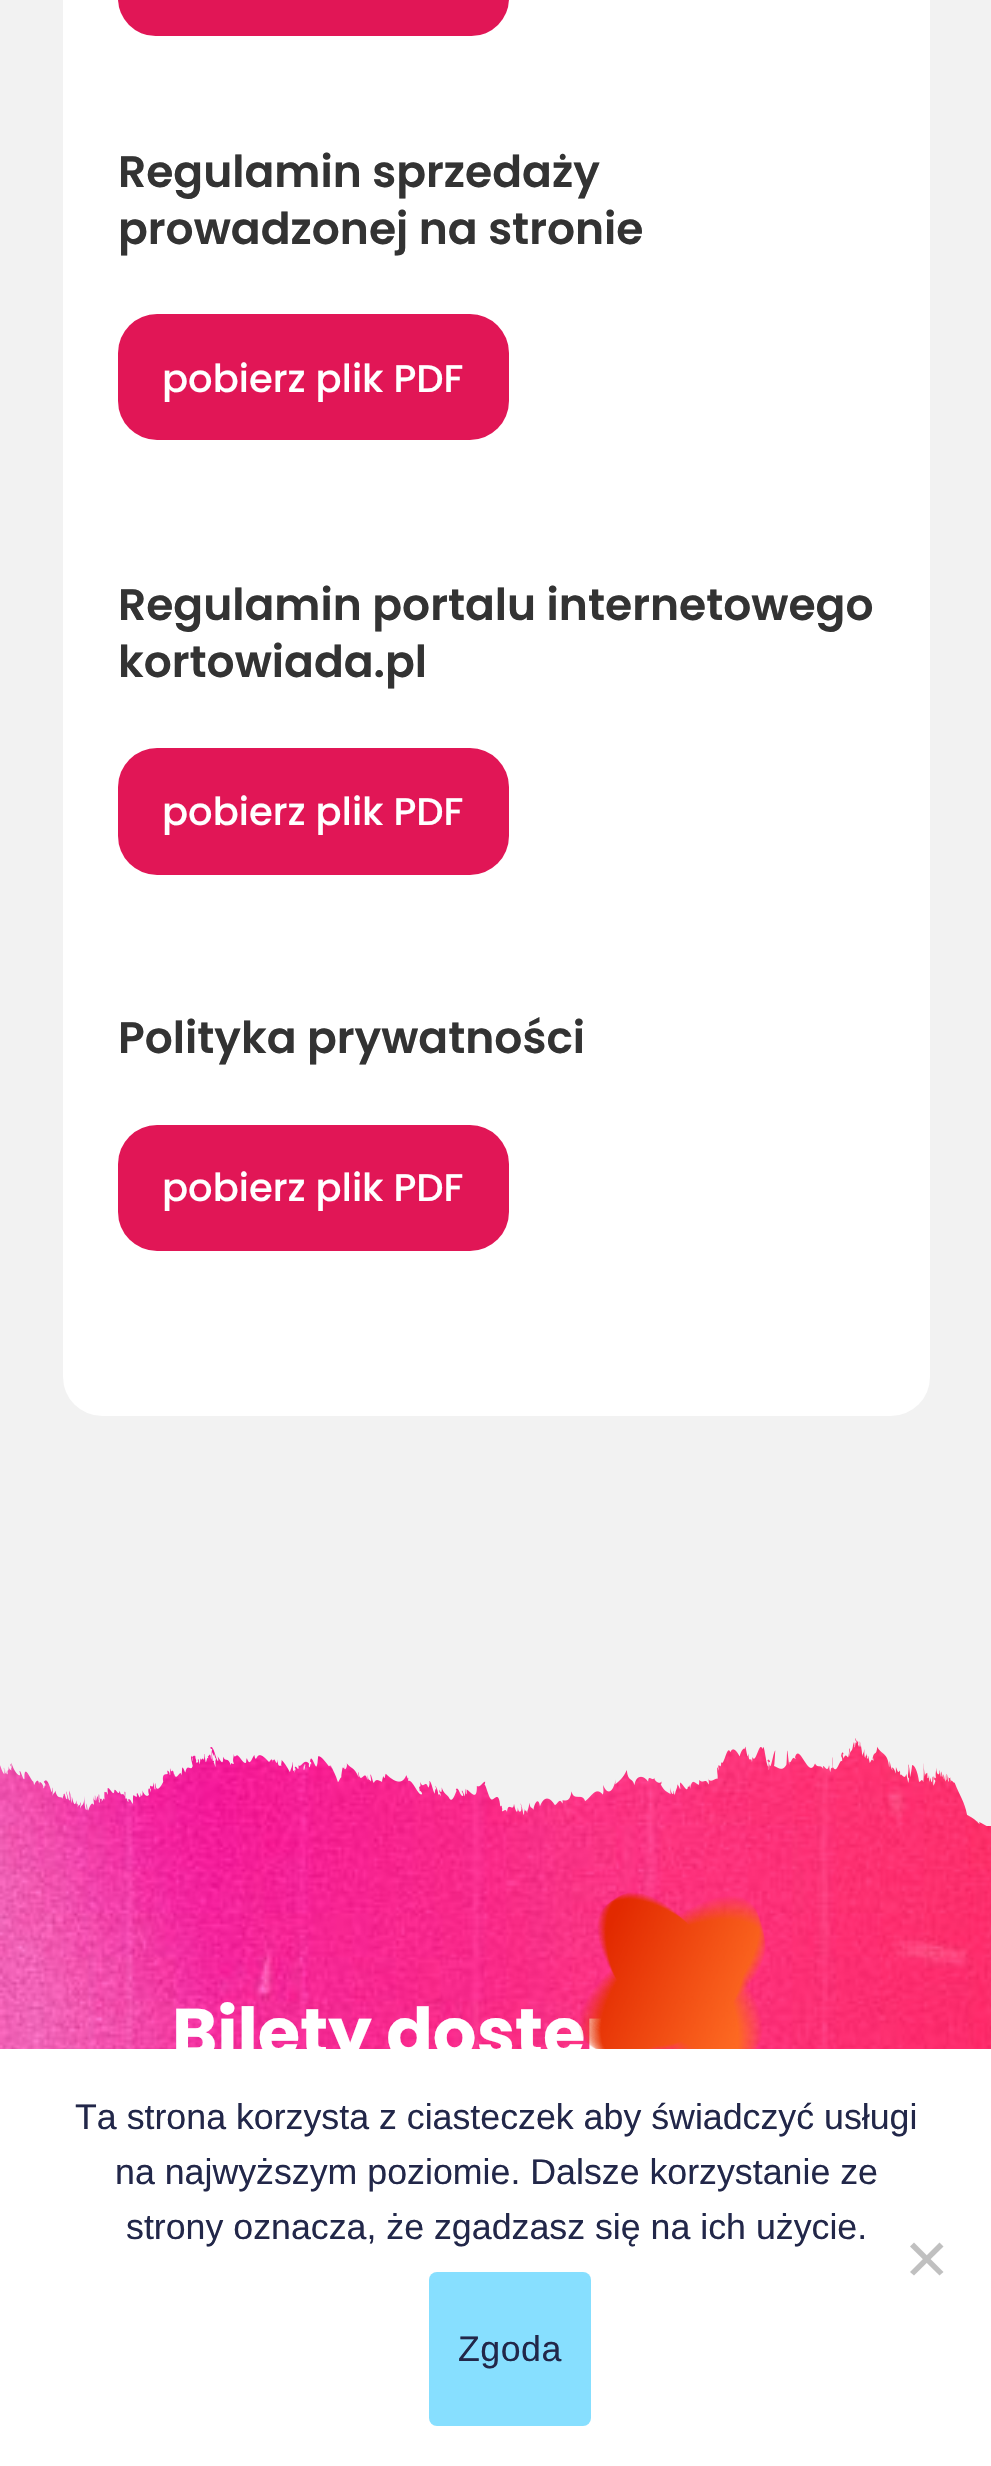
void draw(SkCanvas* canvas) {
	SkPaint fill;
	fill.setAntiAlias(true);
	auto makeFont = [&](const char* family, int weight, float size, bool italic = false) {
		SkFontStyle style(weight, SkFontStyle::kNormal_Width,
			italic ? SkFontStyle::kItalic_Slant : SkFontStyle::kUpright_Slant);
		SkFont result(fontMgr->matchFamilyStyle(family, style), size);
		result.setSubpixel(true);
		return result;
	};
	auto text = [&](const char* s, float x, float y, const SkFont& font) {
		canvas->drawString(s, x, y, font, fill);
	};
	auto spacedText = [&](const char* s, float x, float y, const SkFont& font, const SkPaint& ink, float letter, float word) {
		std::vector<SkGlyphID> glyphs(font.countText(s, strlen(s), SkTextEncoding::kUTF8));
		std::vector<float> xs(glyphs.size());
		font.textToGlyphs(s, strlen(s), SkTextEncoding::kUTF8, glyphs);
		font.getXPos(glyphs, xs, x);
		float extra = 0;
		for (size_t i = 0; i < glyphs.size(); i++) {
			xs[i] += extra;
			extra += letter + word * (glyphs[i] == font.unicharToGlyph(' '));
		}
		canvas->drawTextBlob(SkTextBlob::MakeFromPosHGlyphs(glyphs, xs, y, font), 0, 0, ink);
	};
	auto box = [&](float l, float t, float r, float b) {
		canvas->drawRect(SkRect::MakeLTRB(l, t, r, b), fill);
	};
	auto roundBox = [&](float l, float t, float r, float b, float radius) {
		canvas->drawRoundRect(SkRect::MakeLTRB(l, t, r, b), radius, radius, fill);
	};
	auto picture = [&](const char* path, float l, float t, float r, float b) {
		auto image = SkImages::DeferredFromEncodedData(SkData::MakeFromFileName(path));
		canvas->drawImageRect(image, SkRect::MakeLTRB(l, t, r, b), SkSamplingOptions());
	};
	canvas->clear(0xFFF2F2F2);
	fill.setColor(0xFFFFFFFF);
	roundBox(63, -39, 930, 1416, 39);
	fill.setColor(0xFFE11656);
	roundBox(118, -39, 509, 36, 39);
	roundBox(118, 314, 509, 440, 39);
	roundBox(118, 748, 509, 875, 39);
	roundBox(118, 1125, 509, 1251, 39);
	picture("image0.png", 0, 1738, 991, 2049);
	picture("image1.png", 0, 1691, 991, 1826);
	fill.setColor(0xFFFFFFFF);
	box(0, 2049, 991, 2466);
	fill.setColor(0xFFC0C0C0);
	canvas->drawPath(SkPathBuilder().moveTo(939.5f, 2242.5f).lineTo(943.5f, 2246.5f).lineTo(914, 2275.5f).lineTo(910, 2272).close().detach(), fill);
	canvas->drawPath(SkPathBuilder().moveTo(910, 2246.5f).lineTo(914, 2242.5f).lineTo(943.5f, 2272).lineTo(939.5f, 2275.5f).close().detach(), fill);
	fill.setColor(0xFF87DFFF);
	roundBox(429, 2272, 591, 2426, 8);
	auto font1 = makeFont("Poppins", 600, 44);
	fill.setColor(0xFF333333);
	text("Regulamin sprzedaży", 118, 187, font1);
	text("prowadzonej na stronie", 118, 244, font1);
	auto font2 = makeFont("Poppins", 500, 38.5f);
	fill.setColor(0xFFFFFFFF);
	text("pobierz plik PDF", 162, 392, font2);
	fill.setColor(0xFF333333);
	text("Regulamin portalu internetowego", 118, 620, font1);
	text("kortowiada.pl", 118, 677, font1);
	fill.setColor(0xFFFFFFFF);
	text("pobierz plik PDF", 162, 825, font2);
	fill.setColor(0xFF333333);
	text("Polityka prywatności", 118, 1053, font1);
	fill.setColor(0xFFFFFFFF);
	text("pobierz plik PDF", 162, 1201, font2);
	auto font3 = makeFont("Poppins", 700, 68.75f);
	text("Bilety dostęp", 172, 2057, font3);
	picture("image2.png", 579, 1892, 766, 2049);
	auto font4 = makeFont("Liberation Sans", 400, 35.75f);
	fill.setColor(0xFF222749);
	text("Ta strona korzysta z ciasteczek aby świadczyć usługi", 75, 2129, font4);
	text("na najwyższym poziomie. Dalsze korzystanie ze", 115, 2184, font4);
	text("strony oznacza, że zgadzasz się na ich użycie.", 126, 2239, font4);
	spacedText("Zgoda", 458, 2361, font4, fill, 0.5f, 0);
}
